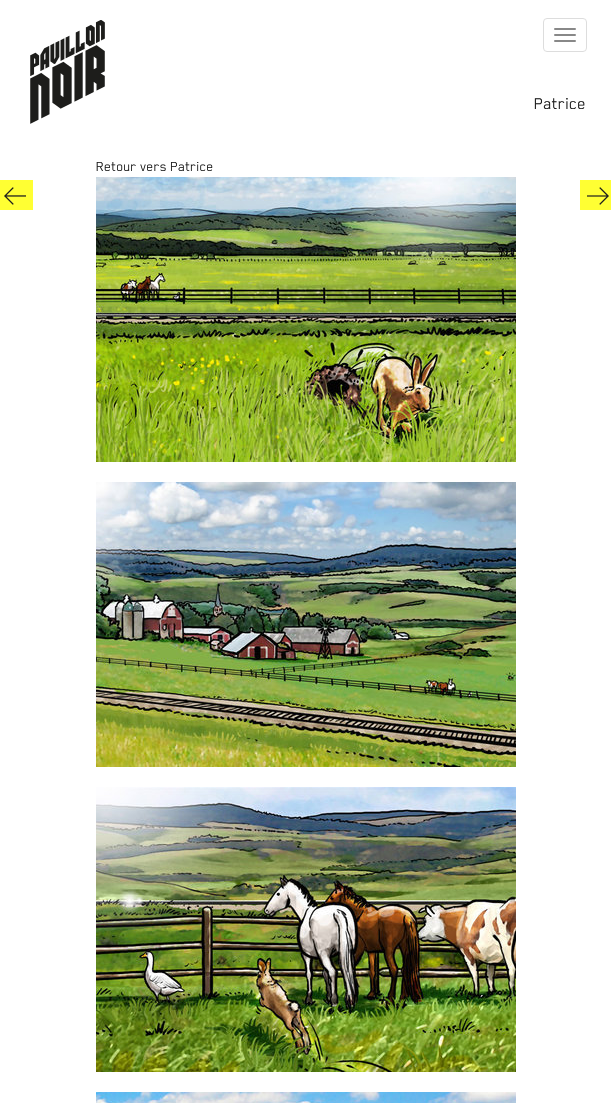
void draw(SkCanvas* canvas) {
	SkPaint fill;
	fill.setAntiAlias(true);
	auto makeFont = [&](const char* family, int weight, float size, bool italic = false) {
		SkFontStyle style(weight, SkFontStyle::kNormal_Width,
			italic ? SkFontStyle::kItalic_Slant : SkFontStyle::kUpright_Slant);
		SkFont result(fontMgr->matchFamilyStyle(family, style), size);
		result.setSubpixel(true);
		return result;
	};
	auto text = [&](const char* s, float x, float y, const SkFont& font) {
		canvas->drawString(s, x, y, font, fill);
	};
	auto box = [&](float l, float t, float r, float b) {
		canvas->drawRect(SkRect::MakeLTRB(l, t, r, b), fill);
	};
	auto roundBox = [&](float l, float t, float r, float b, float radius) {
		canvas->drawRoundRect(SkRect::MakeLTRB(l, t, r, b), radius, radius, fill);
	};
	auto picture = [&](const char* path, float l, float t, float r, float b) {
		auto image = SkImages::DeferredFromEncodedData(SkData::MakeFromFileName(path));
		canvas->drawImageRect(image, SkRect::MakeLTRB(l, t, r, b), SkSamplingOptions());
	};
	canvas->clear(0xFFFFFFFF);
	picture("image0.png", 30, 20, 105, 124);
	fill.setStyle(SkPaint::kStroke_Style);
	fill.setStrokeWidth(1);
	fill.setColor(0xFFDDDDDD);
	canvas->drawRoundRect(SkRect::MakeLTRB(543.5f, 18.5f, 586.5f, 51.5f), 3.5f, 3.5f, fill);
	fill.setStyle(SkPaint::kFill_Style);
	fill.setColor(0xFF888888);
	roundBox(554, 28, 576, 30, 1);
	roundBox(554, 34, 576, 36, 1);
	roundBox(554, 40, 576, 42, 1);
	picture("image1.png", 96, 177, 516, 462);
	picture("image2.png", 96, 482, 516, 767);
	picture("image3.png", 96, 787, 516, 1072);
	picture("image4.png", 96, 1092, 516, 1103);
	fill.setColor(0xFFFFFF33);
	box(0, 180, 33, 210);
	picture("image5.png", 4, 187, 26, 205);
	box(580, 180, 611, 210);
	picture("image6.png", 587, 187, 609, 205);
	auto font1 = makeFont("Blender", 400, 18);
	fill.setColor(0xFF1D1D1D);
	text("Patrice", 534, 109, font1);
	auto font2 = makeFont("Blender", 400, 15);
	text("Retour vers Patrice", 96, 171, font2);
}
